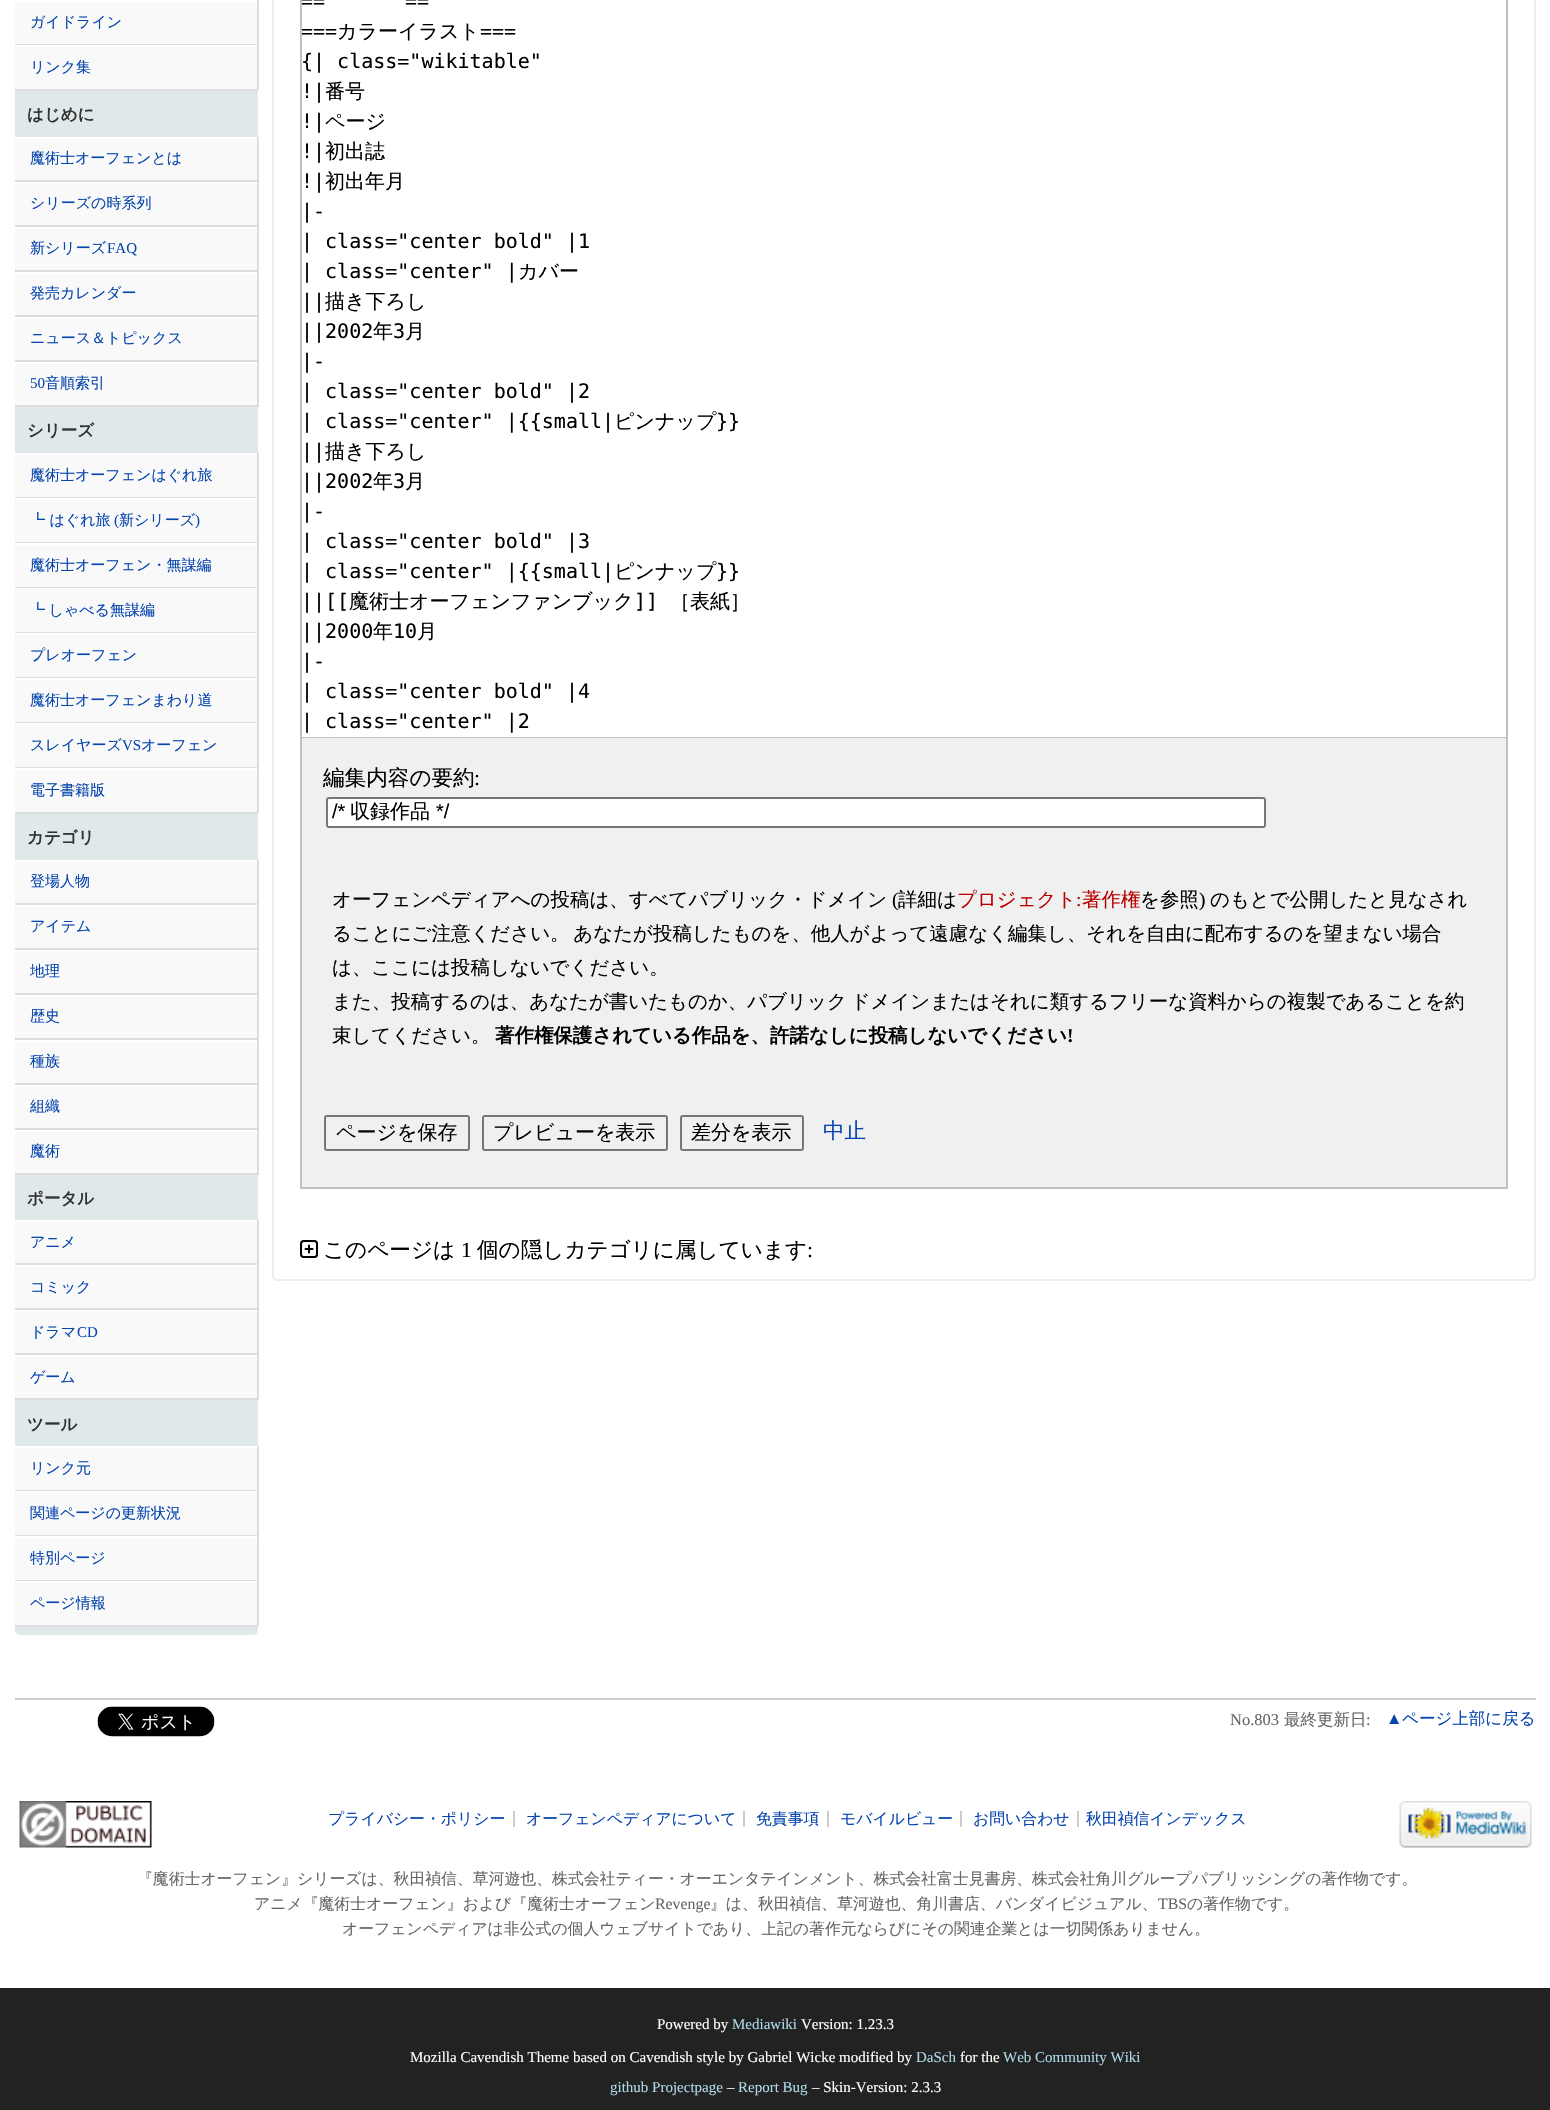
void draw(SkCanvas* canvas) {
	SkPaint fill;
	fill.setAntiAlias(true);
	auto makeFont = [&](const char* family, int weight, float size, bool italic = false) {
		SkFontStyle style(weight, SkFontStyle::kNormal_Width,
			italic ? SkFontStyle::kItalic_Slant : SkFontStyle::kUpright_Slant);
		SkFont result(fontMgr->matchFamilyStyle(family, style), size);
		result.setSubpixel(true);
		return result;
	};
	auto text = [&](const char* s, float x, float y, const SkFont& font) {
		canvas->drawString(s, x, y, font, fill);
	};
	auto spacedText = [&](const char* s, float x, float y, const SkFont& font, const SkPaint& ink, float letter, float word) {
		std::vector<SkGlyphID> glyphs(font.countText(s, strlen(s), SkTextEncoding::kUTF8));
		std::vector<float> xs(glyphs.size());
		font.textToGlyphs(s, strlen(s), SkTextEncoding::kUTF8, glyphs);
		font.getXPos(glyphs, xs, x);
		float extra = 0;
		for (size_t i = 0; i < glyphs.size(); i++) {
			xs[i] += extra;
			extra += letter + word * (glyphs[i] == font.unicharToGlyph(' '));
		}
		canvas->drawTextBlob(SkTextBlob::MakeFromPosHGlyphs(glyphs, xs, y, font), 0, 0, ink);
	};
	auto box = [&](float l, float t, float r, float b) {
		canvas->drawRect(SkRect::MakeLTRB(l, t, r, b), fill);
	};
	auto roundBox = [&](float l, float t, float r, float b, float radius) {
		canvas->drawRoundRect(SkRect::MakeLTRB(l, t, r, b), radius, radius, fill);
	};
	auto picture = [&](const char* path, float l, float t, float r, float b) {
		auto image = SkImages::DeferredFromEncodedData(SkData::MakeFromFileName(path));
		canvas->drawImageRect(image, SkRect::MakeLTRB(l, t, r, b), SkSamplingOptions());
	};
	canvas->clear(0xFFFFFFFF);
	fill.setColor(0xFFE0E9E9);
	roundBox(15, -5, 258, 1635, 5);
	fill.setColor(0xFFF9F9F9);
	box(15, 2, 257, 44);
	fill.setColor(0xFFFFFFFF);
	box(15, 0, 258, 2);
	fill.setColor(0xFFDDDDDD);
	box(257, 0, 259, 45);
	box(15, 44, 258, 45);
	fill.setColor(0xFFF9F9F9);
	box(15, 47, 257, 89);
	fill.setColor(0xFFFFFFFF);
	box(15, 45, 258, 47);
	fill.setColor(0xFFDDDDDD);
	box(257, 45, 259, 90);
	box(15, 89, 258, 91);
	fill.setColor(0xFFF9F9F9);
	box(15, 139, 257, 180);
	fill.setColor(0xFFFFFFFF);
	box(15, 137, 258, 139);
	fill.setColor(0xFFDDDDDD);
	box(257, 137, 259, 182);
	box(15, 180, 258, 182);
	fill.setColor(0xFFF9F9F9);
	box(15, 184, 257, 225);
	fill.setColor(0xFFFFFFFF);
	box(15, 182, 258, 184);
	fill.setColor(0xFFDDDDDD);
	box(257, 182, 259, 227);
	box(15, 225, 258, 227);
	fill.setColor(0xFFF9F9F9);
	box(15, 229, 257, 270);
	fill.setColor(0xFFFFFFFF);
	box(15, 227, 258, 229);
	fill.setColor(0xFFDDDDDD);
	box(257, 227, 259, 272);
	box(15, 270, 258, 272);
	fill.setColor(0xFFF9F9F9);
	box(15, 274, 257, 315);
	fill.setColor(0xFFFFFFFF);
	box(15, 272, 258, 274);
	fill.setColor(0xFFDDDDDD);
	box(257, 272, 259, 317);
	box(15, 315, 258, 317);
	fill.setColor(0xFFF9F9F9);
	box(15, 319, 257, 360);
	fill.setColor(0xFFFFFFFF);
	box(15, 317, 258, 319);
	fill.setColor(0xFFDDDDDD);
	box(257, 317, 259, 362);
	box(15, 360, 258, 362);
	fill.setColor(0xFFF9F9F9);
	box(15, 364, 257, 405);
	fill.setColor(0xFFFFFFFF);
	box(15, 362, 258, 364);
	fill.setColor(0xFFDDDDDD);
	box(257, 362, 259, 407);
	box(15, 405, 258, 407);
	fill.setColor(0xFFF9F9F9);
	box(15, 455, 257, 497);
	fill.setColor(0xFFFFFFFF);
	box(15, 453, 258, 455);
	fill.setColor(0xFFDDDDDD);
	box(257, 453, 259, 498);
	box(15, 497, 258, 498);
	fill.setColor(0xFFF9F9F9);
	box(15, 500, 257, 542);
	fill.setColor(0xFFFFFFFF);
	box(15, 498, 258, 500);
	fill.setColor(0xFFDDDDDD);
	box(257, 498, 259, 543);
	box(15, 542, 258, 543);
	fill.setColor(0xFFF9F9F9);
	box(15, 545, 257, 587);
	fill.setColor(0xFFFFFFFF);
	box(15, 543, 258, 545);
	fill.setColor(0xFFDDDDDD);
	box(257, 543, 259, 588);
	box(15, 587, 258, 588);
	fill.setColor(0xFFF9F9F9);
	box(15, 590, 257, 632);
	fill.setColor(0xFFFFFFFF);
	box(15, 588, 258, 590);
	fill.setColor(0xFFDDDDDD);
	box(257, 588, 259, 633);
	box(15, 632, 258, 633);
	fill.setColor(0xFFF9F9F9);
	box(15, 635, 257, 677);
	fill.setColor(0xFFFFFFFF);
	box(15, 633, 258, 635);
	fill.setColor(0xFFDDDDDD);
	box(257, 633, 259, 678);
	box(15, 677, 258, 678);
	fill.setColor(0xFFF9F9F9);
	box(15, 680, 257, 722);
	fill.setColor(0xFFFFFFFF);
	box(15, 678, 258, 680);
	fill.setColor(0xFFDDDDDD);
	box(257, 678, 259, 723);
	box(15, 722, 258, 723);
	fill.setColor(0xFFF9F9F9);
	box(15, 725, 257, 767);
	fill.setColor(0xFFFFFFFF);
	box(15, 723, 258, 725);
	fill.setColor(0xFFDDDDDD);
	box(257, 723, 259, 768);
	box(15, 767, 258, 768);
	fill.setColor(0xFFF9F9F9);
	box(15, 770, 257, 812);
	fill.setColor(0xFFFFFFFF);
	box(15, 768, 258, 770);
	fill.setColor(0xFFDDDDDD);
	box(257, 768, 259, 813);
	box(15, 812, 258, 814);
	fill.setColor(0xFFF9F9F9);
	box(15, 862, 257, 903);
	fill.setColor(0xFFFFFFFF);
	box(15, 860, 258, 862);
	fill.setColor(0xFFDDDDDD);
	box(257, 860, 259, 905);
	box(15, 903, 258, 905);
	fill.setColor(0xFFF9F9F9);
	box(15, 907, 257, 948);
	fill.setColor(0xFFFFFFFF);
	box(15, 905, 258, 907);
	fill.setColor(0xFFDDDDDD);
	box(257, 905, 259, 950);
	box(15, 948, 258, 950);
	fill.setColor(0xFFF9F9F9);
	box(15, 952, 257, 993);
	fill.setColor(0xFFFFFFFF);
	box(15, 950, 258, 952);
	fill.setColor(0xFFDDDDDD);
	box(257, 950, 259, 995);
	box(15, 993, 258, 995);
	fill.setColor(0xFFF9F9F9);
	box(15, 997, 257, 1038);
	fill.setColor(0xFFFFFFFF);
	box(15, 995, 258, 997);
	fill.setColor(0xFFDDDDDD);
	box(257, 995, 259, 1040);
	box(15, 1038, 258, 1040);
	fill.setColor(0xFFF9F9F9);
	box(15, 1042, 257, 1083);
	fill.setColor(0xFFFFFFFF);
	box(15, 1040, 258, 1042);
	fill.setColor(0xFFDDDDDD);
	box(257, 1040, 259, 1085);
	box(15, 1083, 258, 1085);
	fill.setColor(0xFFF9F9F9);
	box(15, 1087, 257, 1128);
	fill.setColor(0xFFFFFFFF);
	box(15, 1085, 258, 1087);
	fill.setColor(0xFFDDDDDD);
	box(257, 1085, 259, 1130);
	box(15, 1128, 258, 1130);
	fill.setColor(0xFFF9F9F9);
	box(15, 1132, 257, 1173);
	fill.setColor(0xFFFFFFFF);
	box(15, 1130, 258, 1132);
	fill.setColor(0xFFDDDDDD);
	box(257, 1130, 259, 1175);
	box(15, 1173, 258, 1175);
	fill.setColor(0xFFF9F9F9);
	box(15, 1222, 257, 1263);
	fill.setColor(0xFFFFFFFF);
	box(15, 1220, 258, 1222);
	fill.setColor(0xFFDDDDDD);
	box(257, 1220, 259, 1265);
	box(15, 1263, 258, 1265);
	fill.setColor(0xFFF9F9F9);
	box(15, 1267, 257, 1308);
	fill.setColor(0xFFFFFFFF);
	box(15, 1265, 258, 1267);
	fill.setColor(0xFFDDDDDD);
	box(257, 1265, 259, 1310);
	box(15, 1308, 258, 1310);
	fill.setColor(0xFFF9F9F9);
	box(15, 1312, 257, 1353);
	fill.setColor(0xFFFFFFFF);
	box(15, 1310, 258, 1312);
	fill.setColor(0xFFDDDDDD);
	box(257, 1310, 259, 1355);
	box(15, 1353, 258, 1355);
	fill.setColor(0xFFF9F9F9);
	box(15, 1357, 257, 1398);
	fill.setColor(0xFFFFFFFF);
	box(15, 1355, 258, 1357);
	fill.setColor(0xFFDDDDDD);
	box(257, 1355, 259, 1400);
	box(15, 1398, 258, 1400);
	fill.setColor(0xFFF9F9F9);
	box(15, 1448, 257, 1490);
	fill.setColor(0xFFFFFFFF);
	box(15, 1446, 258, 1448);
	fill.setColor(0xFFDDDDDD);
	box(257, 1446, 259, 1491);
	box(15, 1490, 258, 1491);
	fill.setColor(0xFFF9F9F9);
	box(15, 1493, 257, 1535);
	fill.setColor(0xFFFFFFFF);
	box(15, 1491, 258, 1493);
	fill.setColor(0xFFDDDDDD);
	box(257, 1491, 259, 1536);
	box(15, 1535, 258, 1536);
	fill.setColor(0xFFF9F9F9);
	box(15, 1538, 257, 1580);
	fill.setColor(0xFFFFFFFF);
	box(15, 1536, 258, 1538);
	fill.setColor(0xFFDDDDDD);
	box(257, 1536, 259, 1581);
	box(15, 1580, 258, 1581);
	fill.setColor(0xFFF9F9F9);
	box(15, 1583, 257, 1625);
	fill.setColor(0xFFFFFFFF);
	box(15, 1581, 258, 1583);
	fill.setColor(0xFFDDDDDD);
	box(257, 1581, 259, 1626);
	box(15, 1625, 258, 1627);
	fill.setStyle(SkPaint::kStroke_Style);
	fill.setStrokeWidth(2);
	fill.setColor(0xFFEEEEEE);
	canvas->drawRoundRect(SkRect::MakeLTRB(273, -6, 1535, 1280), 4, 4, fill);
	fill.setColor(0xFFC0C0C0);
	canvas->drawRect(SkRect::MakeLTRB(301, -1, 1507, 737), fill);
	fill.setStyle(SkPaint::kFill_Style);
	fill.setColor(0xFFFFFFFF);
	box(302, 736, 1506, 737);
	fill.setColor(0xFFF0F0F0);
	box(302, 738, 1506, 1187);
	fill.setColor(0xFFC0C0C0);
	box(1506, 738, 1508, 1188);
	box(300, 1187, 1508, 1189);
	box(300, 738, 302, 1188);
	fill.setColor(0xFFFFFFFF);
	canvas->drawRoundRect(SkRect::MakeLTRB(327, 798, 1265, 827), 2, 2, fill);
	fill.setStyle(SkPaint::kStroke_Style);
	fill.setColor(0xFF767676);
	canvas->drawRoundRect(SkRect::MakeLTRB(327, 798, 1265, 827), 2, 2, fill);
	canvas->drawRoundRect(SkRect::MakeLTRB(325, 1116, 469, 1150), 2, 2, fill);
	canvas->drawRoundRect(SkRect::MakeLTRB(483, 1116, 667, 1150), 2, 2, fill);
	canvas->drawRoundRect(SkRect::MakeLTRB(681, 1116, 803, 1150), 2, 2, fill);
	picture("image0.png", 300, 1240, 318, 1258);
	fill.setStyle(SkPaint::kFill_Style);
	fill.setColor(0xFFCCCCCC);
	box(15, 1698, 1536, 1700);
	picture("image1.png", 97, 1706, 215, 1737);
	picture("image2.png", 19, 1801, 152, 1848);
	box(513, 1811, 515, 1827);
	box(743, 1811, 745, 1827);
	box(827, 1811, 829, 1827);
	box(960, 1811, 962, 1827);
	box(1077, 1811, 1079, 1827);
	picture("image3.png", 1399, 1801, 1532, 1848);
	fill.setColor(0xFF222222);
	box(0, 1988, 1550, 2110);
	auto font1 = makeFont("WenQuanYi Zen Hei", 500, 15);
	fill.setColor(0xFF0645AD);
	text("ガイドライン", 30, 27, font1);
	text("リンク集", 30, 72, font1);
	auto font2 = makeFont("WenQuanYi Zen Hei", 700, 16.5f);
	fill.setColor(0xFF333333);
	text("はじめに", 27, 120, font2);
	fill.setColor(0xFF0645AD);
	text("魔術士オーフェンとは", 30, 163, font1);
	text("シリーズの時系列", 30, 208, font1);
	text("新シリーズ", 30, 253, font1);
	auto font3 = makeFont("Liberation Serif", 400, 15);
	text("FAQ", 107, 253, font3);
	text("発売カレンダー", 30, 298, font1);
	text("ニュース＆トピックス", 30, 343, font1);
	text("50", 30, 388, font3);
	text("音順索引", 45, 388, font1);
	fill.setColor(0xFF333333);
	text("シリーズ", 27, 436, font2);
	fill.setColor(0xFF0645AD);
	text("魔術士オーフェンはぐれ旅", 30, 480, font1);
	text("┗ はぐれ旅", 30, 525, font1);
	text("(", 114, 525, font3);
	text("新シリーズ", 119, 525, font1);
	text(")", 195, 525, font3);
	text("魔術士オーフェン・無謀編", 30, 570, font1);
	spacedText("┗ しゃべる無謀編", 30, 615, font1, fill, 0, -1);
	text("プレオーフェン", 30, 660, font1);
	text("魔術士オーフェンまわり道", 30, 705, font1);
	text("スレイヤーズ", 30, 750, font1);
	text("VS", 122, 750, font3);
	text("オーフェン", 141, 750, font1);
	text("電子書籍版", 30, 795, font1);
	fill.setColor(0xFF333333);
	text("カテゴリ", 27, 843, font2);
	fill.setColor(0xFF0645AD);
	text("登場人物", 30, 886, font1);
	text("アイテム", 30, 931, font1);
	text("地理", 30, 976, font1);
	text("歴史", 30, 1021, font1);
	text("種族", 30, 1066, font1);
	text("組織", 30, 1111, font1);
	text("魔術", 30, 1156, font1);
	fill.setColor(0xFF333333);
	text("ポータル", 27, 1204, font2);
	fill.setColor(0xFF0645AD);
	text("アニメ", 30, 1247, font1);
	text("コミック", 30, 1292, font1);
	text("ドラマ", 30, 1337, font1);
	text("CD", 77, 1337, font3);
	text("ゲーム", 30, 1382, font1);
	fill.setColor(0xFF333333);
	text("ツール", 27, 1430, font2);
	fill.setColor(0xFF0645AD);
	text("リンク元", 30, 1473, font1);
	text("関連ページの更新状況", 30, 1518, font1);
	text("特別ページ", 30, 1563, font1);
	text("ページ情報", 30, 1608, font1);
	canvas->save();
	canvas->clipRect(SkRect::MakeLTRB(302, 0, 1506, 737));
	auto font4 = makeFont("DejaVu Sans Mono", 400, 20);
	fill.setColor(0xFF000000);
	text("==", 301, 8, font4);
	canvas->restore();
	text("==", 405, 8, font4);
	canvas->save();
	canvas->clipRect(SkRect::MakeLTRB(302, 0, 1506, 737));
	text("===", 301, 38, font4);
	canvas->restore();
	auto font5 = makeFont("WenQuanYi Zen Hei", 500, 20);
	text("カラーイラスト", 337, 38, font5);
	text("===", 480, 38, font4);
	text("{| class=\"wikitable\"", 301, 68, font4);
	text("!|", 301, 98, font4);
	text("番号", 325, 98, font5);
	text("!|", 301, 128, font4);
	text("ページ", 325, 128, font5);
	text("!|", 301, 158, font4);
	text("初出誌", 325, 158, font5);
	text("!|", 301, 188, font4);
	text("初出年月", 325, 188, font5);
	text("|-", 301, 218, font4);
	text("| class=\"center bold\" |1", 301, 248, font4);
	text("| class=\"center\" |", 301, 278, font4);
	text("カバー", 518, 278, font5);
	text("||", 301, 308, font4);
	text("描き下ろし", 325, 308, font5);
	text("||2002", 301, 338, font4);
	text("年", 373, 338, font5);
	text("3", 393, 338, font4);
	text("月", 405, 338, font5);
	text("|-", 301, 368, font4);
	text("| class=\"center bold\" |2", 301, 398, font4);
	text("| class=\"center\" |{{small|", 301, 428, font4);
	text("ピンナップ", 614, 428, font5);
	text("}}", 716, 428, font4);
	text("||", 301, 458, font4);
	text("描き下ろし", 325, 458, font5);
	text("||2002", 301, 488, font4);
	text("年", 373, 488, font5);
	text("3", 393, 488, font4);
	text("月", 405, 488, font5);
	text("|-", 301, 518, font4);
	text("| class=\"center bold\" |3", 301, 548, font4);
	text("| class=\"center\" |{{small|", 301, 578, font4);
	text("ピンナップ", 614, 578, font5);
	text("}}", 716, 578, font4);
	text("||[[", 301, 608, font4);
	text("魔術士オーフェンファンブック", 349, 608, font5);
	text("]]", 634, 608, font4);
	text("［表紙］", 670, 608, font5);
	text("||2000", 301, 638, font4);
	text("年", 373, 638, font5);
	text("10", 393, 638, font4);
	text("月", 417, 638, font5);
	text("|-", 301, 668, font4);
	text("| class=\"center bold\" |4", 301, 698, font4);
	text("| class=\"center\" |2", 301, 728, font4);
	auto font6 = makeFont("WenQuanYi Zen Hei", 500, 21.6f);
	text("編集内容の要約", 323, 785, font6);
	auto font7 = makeFont("Liberation Serif", 400, 21.6f);
	text(":", 474, 785, font7);
	auto font8 = makeFont("Liberation Sans", 400, 20);
	text("/*", 332, 818, font8);
	text("収録作品", 350, 818, font5);
	text("*/", 436, 818, font8);
	auto font9 = makeFont("WenQuanYi Zen Hei", 500, 19.45f);
	text("オーフェンペディアへの投稿は、すべてパブリック・ドメイン", 332, 906, font9);
	auto font10 = makeFont("Liberation Serif", 400, 19.45f);
	text("(", 892, 906, font10);
	text("詳細は", 898, 906, font9);
	fill.setColor(0xFFBA0000);
	text("プロジェクト", 957, 906, font9);
	text(":", 1076, 906, font10);
	text("著作権", 1082, 906, font9);
	fill.setColor(0xFF000000);
	text("を参照", 1140, 906, font9);
	text(")", 1199, 906, font10);
	text("のもとで公開したと見なされ", 1210, 906, font9);
	spacedText("ることにご注意ください。 あなたが投稿したものを、他人がよって遠慮なく編集し、それを自由に配布するのを望まない場合", 332, 940, font9, fill, 0, -2);
	text("は、ここには投稿しないでください。", 332, 974, font9);
	spacedText("また、投稿するのは、あなたが書いたものか、パブリック ドメインまたはそれに類するフリーな資料からの複製であることを約", 332, 1008, font9, fill, 0, -2);
	text("束してください。", 332, 1042, font9);
	auto font11 = makeFont("WenQuanYi Zen Hei", 700, 19.45f);
	text("著作権保護されている作品を、許諾なしに投稿しないでください", 495, 1042, font11);
	auto font12 = makeFont("Liberation Serif", 700, 19.45f);
	text("!", 1067, 1042, font12);
	text("ページを保存", 336, 1139, font5);
	text("プレビューを表示", 493, 1139, font5);
	text("差分を表示", 691, 1139, font5);
	fill.setColor(0xFF0645AD);
	text("中止", 823, 1138, font6);
	fill.setColor(0xFF000000);
	text("このページは", 323, 1257, font6);
	text("1", 461, 1257, font7);
	text("個の隠しカテゴリに属しています", 477, 1257, font6);
	text(":", 807, 1257, font7);
	auto font13 = makeFont("Liberation Serif", 400, 16.5f);
	fill.setColor(0xFF666666);
	text("No.803", 1230, 1725, font13);
	auto font14 = makeFont("WenQuanYi Zen Hei", 500, 16.5f);
	text("最終更新日", 1284, 1725, font14);
	text(":", 1366, 1725, font13);
	fill.setColor(0xFF0645AD);
	text("▲", 1386, 1724, font13);
	text("ページ上部に戻る", 1402, 1724, font14);
	auto font15 = makeFont("WenQuanYi Zen Hei", 500, 15.85f);
	text("プライバシー・ポリシー", 328, 1824, font15);
	text("オーフェンペディアについて", 526, 1824, font15);
	text("免責事項", 756, 1824, font15);
	text("モバイルビュー", 840, 1824, font15);
	text("お問い合わせ", 973, 1824, font15);
	text("秋田禎信インデックス", 1086, 1824, font15);
	fill.setColor(0xFF666666);
	text("『魔術士オーフェン』シリーズは、秋田禎信、草河遊也、株式会社ティー・オーエンタテインメント、株式会社富士見書房、株式会社角川グループパブリッシングの著作物です。", 137, 1884, font15);
	text("アニメ『魔術士オーフェン』および『魔術士オーフェン", 254, 1909, font15);
	auto font16 = makeFont("Liberation Serif", 400, 15.85f);
	text("Revenge", 655, 1909, font16);
	text("』は、秋田禎信、草河遊也、角川書店、バンダイビジュアル、", 710, 1909, font15);
	text("TBS", 1158, 1909, font16);
	text("の著作物です。", 1187, 1909, font15);
	text("オーフェンペディアは非公式の個人ウェブサイトであり、上記の著作元ならびにその関連企業とは一切関係ありません。", 342, 1934, font15);
	fill.setColor(0xFFFFFFFF);
	text("Powered by", 657, 2029, font3);
	fill.setColor(0xFFADD8E6);
	text("Mediawiki", 732, 2029, font3);
	fill.setColor(0xFFFFFFFF);
	text("Version: 1.23.3", 801, 2029, font3);
	text("Mozilla Cavendish Theme based on Cavendish style by Gabriel Wicke modified by", 410, 2062, font3);
	fill.setColor(0xFFADD8E6);
	text("DaSch", 916, 2062, font3);
	fill.setColor(0xFFFFFFFF);
	text("for the", 960, 2062, font3);
	fill.setColor(0xFFADD8E6);
	text("Web Community Wiki", 1003, 2062, font3);
	text("github Projectpage", 610, 2092, font3);
	fill.setColor(0xFFFFFFFF);
	text("–", 727, 2092, font3);
	fill.setColor(0xFFADD8E6);
	text("Report Bug", 738, 2092, font3);
	fill.setColor(0xFFFFFFFF);
	text("– Skin-Version: 2.3.3", 812, 2092, font3);
}
